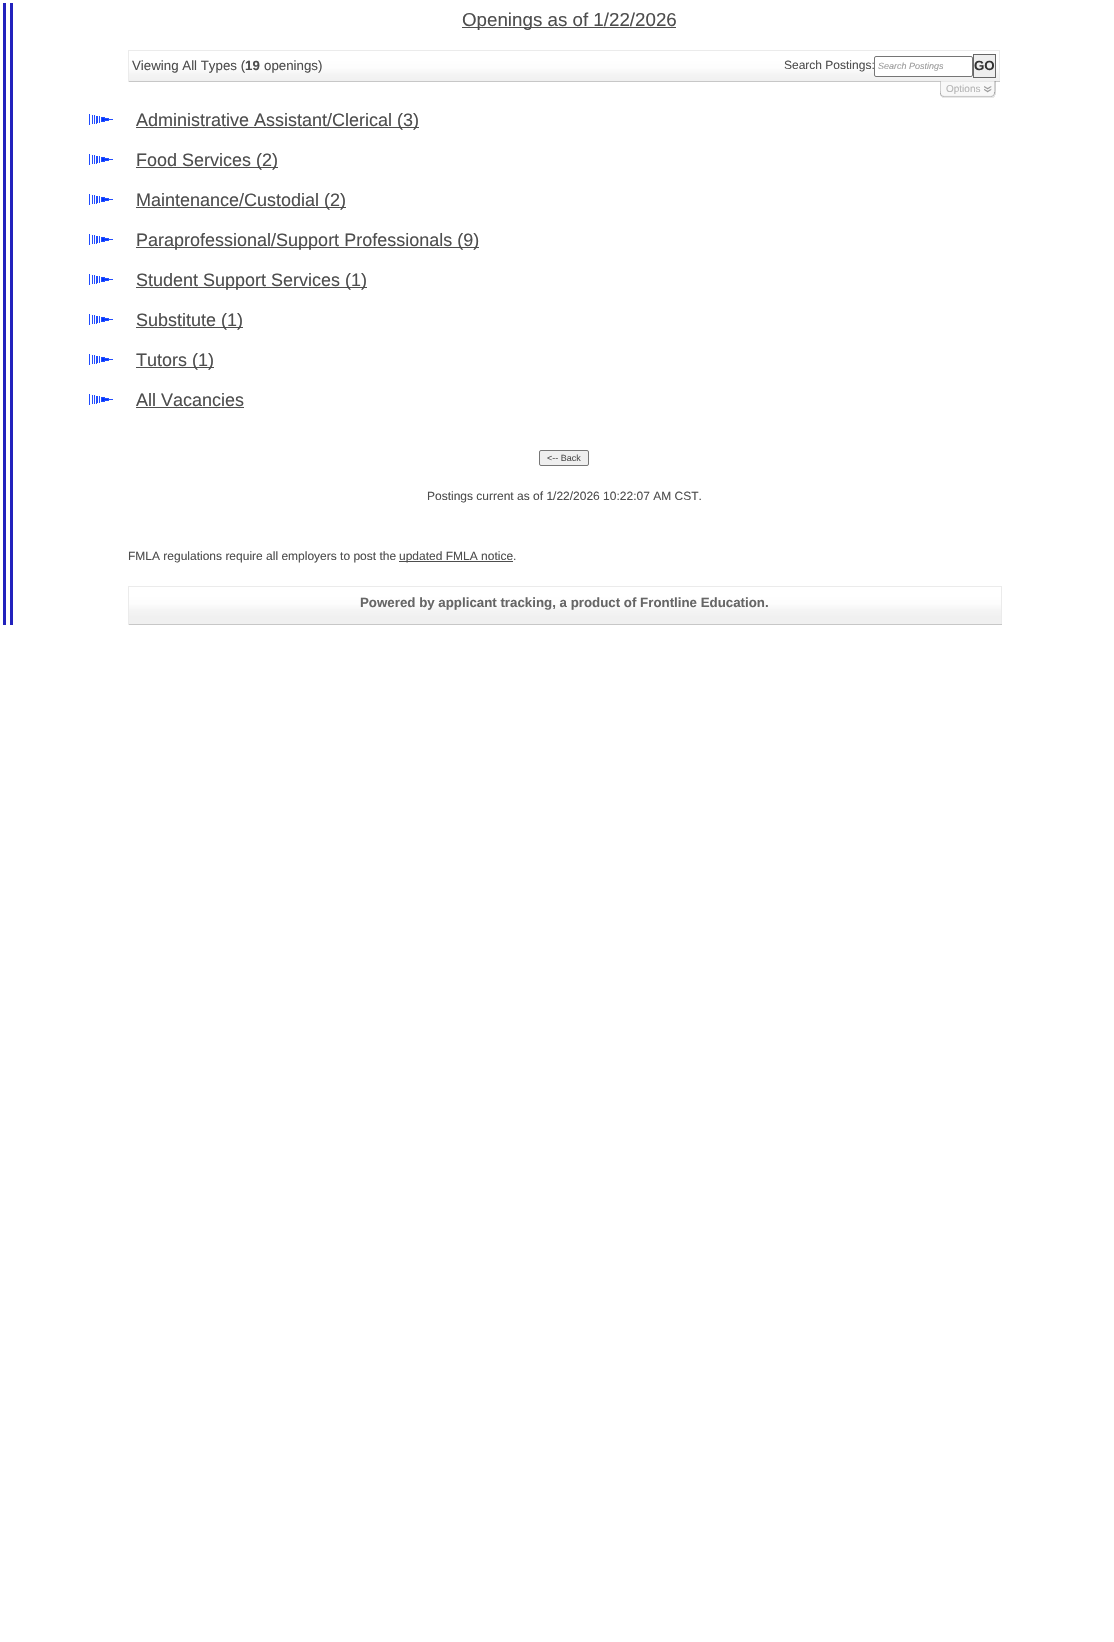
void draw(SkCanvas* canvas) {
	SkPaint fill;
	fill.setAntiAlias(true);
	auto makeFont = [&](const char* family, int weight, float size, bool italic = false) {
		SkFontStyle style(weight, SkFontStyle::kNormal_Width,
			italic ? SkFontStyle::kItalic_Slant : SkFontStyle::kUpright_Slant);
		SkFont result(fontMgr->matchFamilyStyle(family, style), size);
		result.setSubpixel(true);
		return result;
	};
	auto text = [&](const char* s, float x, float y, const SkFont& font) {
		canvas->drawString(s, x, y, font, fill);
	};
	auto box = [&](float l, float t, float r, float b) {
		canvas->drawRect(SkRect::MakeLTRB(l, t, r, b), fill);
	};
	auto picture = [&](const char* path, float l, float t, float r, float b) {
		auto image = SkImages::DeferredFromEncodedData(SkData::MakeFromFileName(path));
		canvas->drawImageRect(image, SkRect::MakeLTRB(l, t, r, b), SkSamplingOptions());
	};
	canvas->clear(0xFFFFFFFF);
	fill.setColor(0xFF2222BD);
	box(3, 3, 6, 625);
	box(10, 3, 13, 625);
	fill.setColor(0xFF4E4E4E);
	box(462, 27, 676, 28);
	picture("image0.png", 129, 51, 999, 81);
	fill.setColor(0xFFEBEBEB);
	box(128, 50, 1000, 51);
	box(999, 50, 1000, 82);
	fill.setColor(0xFFC7C7C7);
	box(128, 81, 1000, 82);
	fill.setColor(0xFFEBEBEB);
	box(128, 50, 129, 82);
	fill.setColor(0xFFFFFFFF);
	canvas->drawRoundRect(SkRect::MakeLTRB(874.5f, 56.5f, 972.5f, 76.5f), 1.5f, 1.5f, fill);
	fill.setStyle(SkPaint::kStroke_Style);
	fill.setStrokeWidth(1);
	fill.setColor(0xFF767676);
	canvas->drawRoundRect(SkRect::MakeLTRB(874.5f, 56.5f, 972.5f, 76.5f), 1.5f, 1.5f, fill);
	fill.setStyle(SkPaint::kFill_Style);
	fill.setColor(0xFFEEEEEE);
	canvas->drawRect(SkRect::MakeLTRB(973.5f, 54.5f, 995.5f, 77.5f), fill);
	fill.setStyle(SkPaint::kStroke_Style);
	fill.setColor(0xFF666666);
	canvas->drawRect(SkRect::MakeLTRB(973.5f, 54.5f, 995.5f, 77.5f), fill);
	picture("image1.png", 940, 81, 996, 98);
	picture("image2.png", 89, 114, 113, 125);
	fill.setStyle(SkPaint::kFill_Style);
	fill.setColor(0xFF4E4E4E);
	box(136, 127, 419, 128);
	picture("image2.png", 89, 154, 113, 165);
	box(136, 167, 278, 168);
	picture("image2.png", 89, 194, 113, 205);
	box(136, 207, 346, 208);
	picture("image2.png", 89, 234, 113, 245);
	box(136, 247, 479, 248);
	picture("image2.png", 89, 274, 113, 285);
	box(136, 287, 367, 288);
	picture("image2.png", 89, 314, 113, 325);
	box(136, 327, 243, 328);
	picture("image2.png", 89, 354, 113, 365);
	box(136, 367, 214, 368);
	picture("image2.png", 89, 394, 113, 405);
	box(136, 407, 244, 408);
	fill.setColor(0xFFEFEFEF);
	canvas->drawRoundRect(SkRect::MakeLTRB(539.5f, 450.5f, 588.5f, 465.5f), 1.5f, 1.5f, fill);
	fill.setStyle(SkPaint::kStroke_Style);
	fill.setColor(0xFF767676);
	canvas->drawRoundRect(SkRect::MakeLTRB(539.5f, 450.5f, 588.5f, 465.5f), 1.5f, 1.5f, fill);
	fill.setStyle(SkPaint::kFill_Style);
	fill.setColor(0xFF4E4E4E);
	box(399, 561, 513, 562);
	picture("image3.png", 129, 587, 1001, 624);
	fill.setColor(0xFFEBEBEB);
	box(128, 586, 1002, 587);
	box(1001, 586, 1002, 625);
	fill.setColor(0xFFC7C7C7);
	box(128, 624, 1002, 625);
	fill.setColor(0xFFEBEBEB);
	box(128, 586, 129, 625);
	auto font1 = makeFont("Liberation Sans", 400, 18.75f);
	fill.setColor(0xFF4E4E4E);
	text("Openings as of 1/22/2026", 462, 26, font1);
	auto font2 = makeFont("Liberation Sans", 400, 13.3f);
	text("Viewing All Types (", 132, 70, font2);
	auto font3 = makeFont("Liberation Sans", 700, 13.3f);
	text("19", 245, 70, font3);
	text("openings)", 264, 70, font2);
	auto font4 = makeFont("Liberation Sans", 400, 12);
	text("Search Postings:", 784, 69, font4);
	auto font5 = makeFont("Liberation Sans", 400, 9, true);
	fill.setColor(0xFF999999);
	text("Search Postings", 878, 69, font5);
	fill.setColor(0xFF333333);
	text("GO", 974, 70, font3);
	auto font6 = makeFont("Liberation Sans", 400, 10);
	fill.setColor(0xFFB5B5B5);
	text("Options", 946, 92, font6);
	auto font7 = makeFont("Liberation Sans", 400, 18);
	fill.setColor(0xFF4E4E4E);
	text("Administrative Assistant/Clerical (3)", 136, 126, font7);
	text("Food Services (2)", 136, 166, font7);
	text("Maintenance/Custodial (2)", 136, 206, font7);
	text("Paraprofessional/Support Professionals (9)", 136, 246, font7);
	text("Student Support Services (1)", 136, 286, font7);
	text("Substitute (1)", 136, 326, font7);
	text("Tutors (1)", 136, 366, font7);
	text("All Vacancies", 136, 406, font7);
	auto font8 = makeFont("Liberation Sans", 400, 9);
	text("<-- Back", 547, 461, font8);
	text("Postings current as of 1/22/2026 10:22:07 AM CST.", 427, 500, font4);
	text("FMLA regulations require all employers to post the", 128, 560, font4);
	text("updated FMLA notice.", 399, 560, font4);
	fill.setColor(0xFF666666);
	text("Powered by applicant tracking, a product of Frontline Education.", 360, 607, font3);
}
